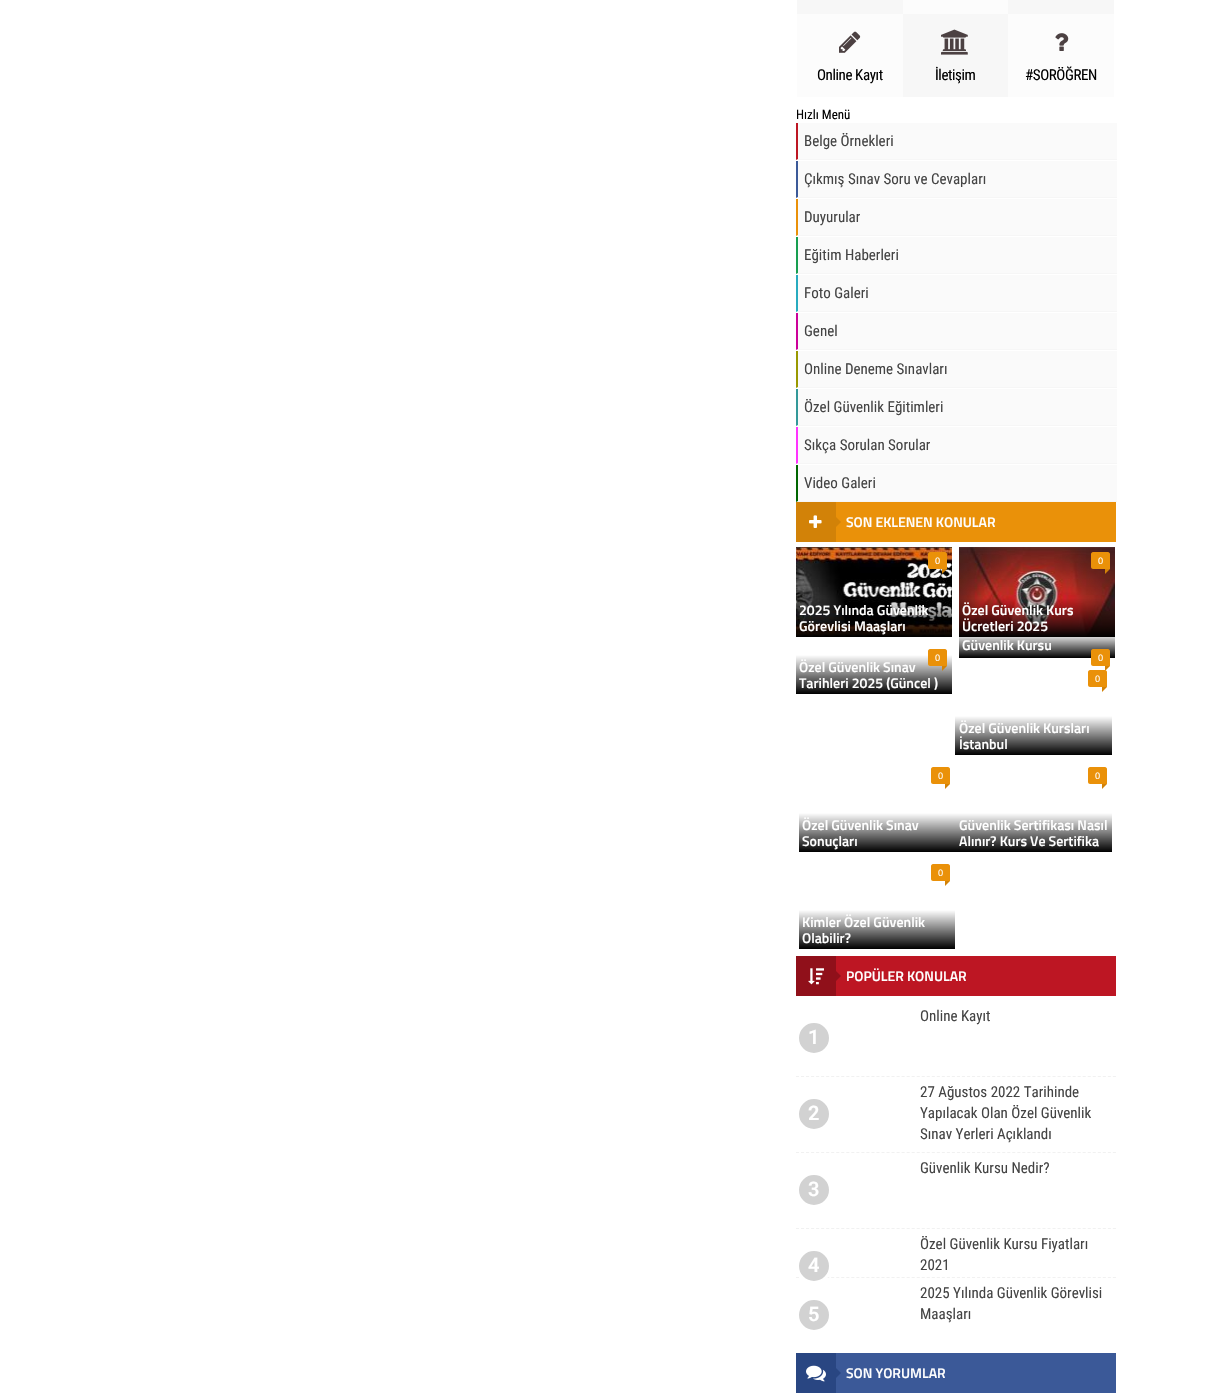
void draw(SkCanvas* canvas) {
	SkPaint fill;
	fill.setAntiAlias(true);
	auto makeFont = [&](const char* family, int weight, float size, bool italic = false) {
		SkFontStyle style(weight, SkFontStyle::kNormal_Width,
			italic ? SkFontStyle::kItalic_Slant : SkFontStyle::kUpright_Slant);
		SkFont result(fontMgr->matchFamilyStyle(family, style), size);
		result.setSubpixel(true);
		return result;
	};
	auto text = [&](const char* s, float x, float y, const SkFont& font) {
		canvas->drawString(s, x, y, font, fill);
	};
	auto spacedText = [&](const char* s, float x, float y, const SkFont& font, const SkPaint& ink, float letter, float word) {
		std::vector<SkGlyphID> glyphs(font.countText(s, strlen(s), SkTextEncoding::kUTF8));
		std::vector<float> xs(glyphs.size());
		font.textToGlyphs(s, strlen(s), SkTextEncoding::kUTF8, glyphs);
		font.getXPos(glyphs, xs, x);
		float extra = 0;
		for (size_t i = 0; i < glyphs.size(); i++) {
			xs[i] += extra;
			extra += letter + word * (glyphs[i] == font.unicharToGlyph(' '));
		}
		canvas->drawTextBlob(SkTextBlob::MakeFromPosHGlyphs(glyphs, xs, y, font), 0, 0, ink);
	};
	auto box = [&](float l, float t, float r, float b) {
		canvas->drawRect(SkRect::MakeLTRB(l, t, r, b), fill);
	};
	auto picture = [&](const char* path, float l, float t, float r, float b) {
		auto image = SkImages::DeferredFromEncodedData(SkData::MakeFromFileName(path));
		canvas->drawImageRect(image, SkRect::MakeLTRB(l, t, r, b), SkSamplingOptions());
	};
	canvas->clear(0xFFFFFFFF);
	fill.setColor(0xFFF7F7F7);
	box(797, 0, 903, 14);
	fill.setColor(0xFFFCFCFC);
	box(903, 0, 1008, 14);
	fill.setColor(0xFFF7F7F7);
	box(1008, 0, 1114, 14);
	fill.setColor(0xFFFCFCFC);
	box(797, 14, 903, 97);
	picture("image0.png", 839, 31, 861, 53);
	fill.setColor(0xFFF7F7F7);
	box(903, 14, 1008, 97);
	picture("image1.png", 941, 29, 968, 55);
	fill.setColor(0xFFFCFCFC);
	box(1008, 14, 1114, 97);
	picture("image2.png", 1055, 33, 1069, 51);
	fill.setColor(0xFFFAFAFA);
	box(796, 123, 1117, 160);
	fill.setColor(0xFFF6F6F6);
	canvas->drawPath(SkPathBuilder().moveTo(1117, 160).lineTo(796, 160).lineTo(798, 159).lineTo(1117, 159).close().detach(), fill);
	fill.setColor(0xFFBD1623);
	canvas->drawPath(SkPathBuilder().moveTo(796, 160).lineTo(796, 123).lineTo(798, 123).lineTo(798, 159).close().detach(), fill);
	fill.setColor(0xFFFAFAFA);
	box(796, 161, 1117, 198);
	fill.setColor(0xFFF6F6F6);
	canvas->drawPath(SkPathBuilder().moveTo(1117, 198).lineTo(796, 198).lineTo(798, 197).lineTo(1117, 197).close().detach(), fill);
	fill.setColor(0xFF3B5998);
	canvas->drawPath(SkPathBuilder().moveTo(796, 198).lineTo(796, 161).lineTo(798, 161).lineTo(798, 197).close().detach(), fill);
	fill.setColor(0xFFFAFAFA);
	box(796, 199, 1117, 236);
	fill.setColor(0xFFF6F6F6);
	canvas->drawPath(SkPathBuilder().moveTo(1117, 236).lineTo(796, 236).lineTo(798, 235).lineTo(1117, 235).close().detach(), fill);
	fill.setColor(0xFFEA9109);
	canvas->drawPath(SkPathBuilder().moveTo(796, 236).lineTo(796, 199).lineTo(798, 199).lineTo(798, 235).close().detach(), fill);
	fill.setColor(0xFFFAFAFA);
	box(796, 237, 1117, 274);
	fill.setColor(0xFFF6F6F6);
	canvas->drawPath(SkPathBuilder().moveTo(1117, 274).lineTo(796, 274).lineTo(798, 273).lineTo(1117, 273).close().detach(), fill);
	fill.setColor(0xFF179E50);
	canvas->drawPath(SkPathBuilder().moveTo(796, 274).lineTo(796, 237).lineTo(798, 237).lineTo(798, 273).close().detach(), fill);
	fill.setColor(0xFFFAFAFA);
	box(796, 275, 1117, 312);
	fill.setColor(0xFFF6F6F6);
	canvas->drawPath(SkPathBuilder().moveTo(1117, 312).lineTo(796, 312).lineTo(798, 311).lineTo(1117, 311).close().detach(), fill);
	fill.setColor(0xFF28ABBF);
	canvas->drawPath(SkPathBuilder().moveTo(796, 312).lineTo(796, 275).lineTo(798, 275).lineTo(798, 311).close().detach(), fill);
	fill.setColor(0xFFFAFAFA);
	box(796, 313, 1117, 350);
	fill.setColor(0xFFF6F6F6);
	canvas->drawPath(SkPathBuilder().moveTo(1117, 350).lineTo(796, 350).lineTo(798, 349).lineTo(1117, 349).close().detach(), fill);
	fill.setColor(0xFFCC0099);
	canvas->drawPath(SkPathBuilder().moveTo(796, 350).lineTo(796, 313).lineTo(798, 313).lineTo(798, 349).close().detach(), fill);
	fill.setColor(0xFFFAFAFA);
	box(796, 351, 1117, 388);
	fill.setColor(0xFFF6F6F6);
	canvas->drawPath(SkPathBuilder().moveTo(1117, 388).lineTo(796, 388).lineTo(798, 387).lineTo(1117, 387).close().detach(), fill);
	fill.setColor(0xFF999900);
	canvas->drawPath(SkPathBuilder().moveTo(796, 388).lineTo(796, 351).lineTo(798, 351).lineTo(798, 387).close().detach(), fill);
	fill.setColor(0xFFFAFAFA);
	box(796, 389, 1117, 426);
	fill.setColor(0xFFF6F6F6);
	canvas->drawPath(SkPathBuilder().moveTo(1117, 426).lineTo(796, 426).lineTo(798, 425).lineTo(1117, 425).close().detach(), fill);
	fill.setColor(0xFF339999);
	canvas->drawPath(SkPathBuilder().moveTo(796, 426).lineTo(796, 389).lineTo(798, 389).lineTo(798, 425).close().detach(), fill);
	fill.setColor(0xFFFAFAFA);
	box(796, 427, 1117, 464);
	fill.setColor(0xFFF6F6F6);
	canvas->drawPath(SkPathBuilder().moveTo(1117, 464).lineTo(796, 464).lineTo(798, 463).lineTo(1117, 463).close().detach(), fill);
	fill.setColor(0xFFFF33FF);
	canvas->drawPath(SkPathBuilder().moveTo(796, 464).lineTo(796, 427).lineTo(798, 427).lineTo(798, 463).close().detach(), fill);
	fill.setColor(0xFFFAFAFA);
	box(796, 465, 1117, 502);
	fill.setColor(0xFFF6F6F6);
	canvas->drawPath(SkPathBuilder().moveTo(1117, 502).lineTo(796, 502).lineTo(798, 501).lineTo(1117, 501).close().detach(), fill);
	fill.setColor(0xFF006600);
	canvas->drawPath(SkPathBuilder().moveTo(796, 502).lineTo(796, 465).lineTo(798, 465).lineTo(798, 501).close().detach(), fill);
	fill.setColor(0xFFEA9109);
	box(836, 502, 1116, 542);
	fill.setColor(0xFFD28208);
	box(796, 502, 836, 542);
	picture("image3.png", 809, 515, 822, 528);
	canvas->drawPath(SkPathBuilder().moveTo(836, 527).lineTo(836, 517).lineTo(841, 522).close().detach(), fill);
	picture("image4.png", 796, 547, 952, 637);
	fill.setColor(0xFFEA9109);
	canvas->drawPath(SkPathBuilder().moveTo(930, 552).lineTo(945, 552).cubicTo(946, 552, 947, 553, 947, 554).lineTo(947, 569).lineTo(930, 569).cubicTo(929, 569, 928, 568, 928, 567).lineTo(928, 554).cubicTo(928, 553, 929, 552, 930, 552).close().detach(), fill);
	fill.setColor(0xFFD28208);
	canvas->drawPath(SkPathBuilder().moveTo(942, 569).lineTo(947, 569).lineTo(942, 574).close().detach(), fill);
	picture("image5.png", 959, 547, 1115, 637);
	fill.setColor(0xFFEA9109);
	canvas->drawPath(SkPathBuilder().moveTo(1093, 552).lineTo(1108, 552).cubicTo(1109, 552, 1110, 553, 1110, 554).lineTo(1110, 569).lineTo(1093, 569).cubicTo(1092, 569, 1091, 568, 1091, 567).lineTo(1091, 554).cubicTo(1091, 553, 1092, 552, 1093, 552).close().detach(), fill);
	fill.setColor(0xFFD28208);
	canvas->drawPath(SkPathBuilder().moveTo(1105, 569).lineTo(1110, 569).lineTo(1105, 574).close().detach(), fill);
	{
		const SkColor colors[] = {0x00000000, 0xFF000000};
		const float stops[] = {0, 1};
		const SkPoint ends[] = {{1037, 633}, {1037, 658}};
		fill.setShader(SkGradientShader::MakeLinear(ends, colors, stops, 2, SkTileMode::kClamp));
		fill.setAlpha(255);
	}
	box(959, 637, 1115, 658);
	fill.setShader(nullptr);
	fill.setColor(0xFFEA9109);
	canvas->drawPath(SkPathBuilder().moveTo(1093, 649).lineTo(1108, 649).cubicTo(1109, 649, 1110, 650, 1110, 651).lineTo(1110, 666).lineTo(1093, 666).cubicTo(1092, 666, 1091, 665, 1091, 664).lineTo(1091, 651).cubicTo(1091, 650, 1092, 649, 1093, 649).close().detach(), fill);
	fill.setColor(0xFFD28208);
	canvas->drawPath(SkPathBuilder().moveTo(1105, 666).lineTo(1110, 666).lineTo(1105, 671).close().detach(), fill);
	{
		const SkColor colors[] = {0xFFFFFFFF, 0xFF000000};
		const float stops[] = {0, 1};
		const SkPoint ends[] = {{874, 655}, {874, 694}};
		fill.setShader(SkGradientShader::MakeLinear(ends, colors, stops, 2, SkTileMode::kClamp));
		fill.setAlpha(255);
	}
	box(796, 655, 952, 694);
	fill.setShader(nullptr);
	fill.setColor(0xFFEA9109);
	canvas->drawPath(SkPathBuilder().moveTo(930, 649).lineTo(945, 649).cubicTo(946, 649, 947, 650, 947, 651).lineTo(947, 666).lineTo(930, 666).cubicTo(929, 666, 928, 665, 928, 664).lineTo(928, 651).cubicTo(928, 650, 929, 649, 930, 649).close().detach(), fill);
	fill.setColor(0xFFD28208);
	canvas->drawPath(SkPathBuilder().moveTo(942, 666).lineTo(947, 666).lineTo(942, 671).close().detach(), fill);
	fill.setColor(0xFFEA9109);
	canvas->drawPath(SkPathBuilder().moveTo(1090, 670).lineTo(1105, 670).cubicTo(1106, 670, 1107, 671, 1107, 672).lineTo(1107, 687).lineTo(1090, 687).cubicTo(1089, 687, 1088, 686, 1088, 685).lineTo(1088, 672).cubicTo(1088, 671, 1089, 670, 1090, 670).close().detach(), fill);
	fill.setColor(0xFFD28208);
	canvas->drawPath(SkPathBuilder().moveTo(1102, 687).lineTo(1107, 687).lineTo(1102, 692).close().detach(), fill);
	{
		const SkColor colors[] = {0xFFFFFFFF, 0xFF000000};
		const float stops[] = {0, 1};
		const SkPoint ends[] = {{1034, 716}, {1034, 755}};
		fill.setShader(SkGradientShader::MakeLinear(ends, colors, stops, 2, SkTileMode::kClamp));
		fill.setAlpha(255);
	}
	box(955, 716, 1112, 755);
	fill.setShader(nullptr);
	fill.setColor(0xFFEA9109);
	canvas->drawPath(SkPathBuilder().moveTo(933, 767).lineTo(948, 767).cubicTo(949, 767, 950, 768, 950, 769).lineTo(950, 784).lineTo(933, 784).cubicTo(932, 784, 931, 783, 931, 782).lineTo(931, 769).cubicTo(931, 768, 932, 767, 933, 767).close().detach(), fill);
	fill.setColor(0xFFD28208);
	canvas->drawPath(SkPathBuilder().moveTo(945, 784).lineTo(950, 784).lineTo(945, 789).close().detach(), fill);
	{
		const SkColor colors[] = {0xFFFFFFFF, 0xFF000000};
		const float stops[] = {0, 1};
		const SkPoint ends[] = {{877, 813}, {877, 852}};
		fill.setShader(SkGradientShader::MakeLinear(ends, colors, stops, 2, SkTileMode::kClamp));
		fill.setAlpha(255);
	}
	box(799, 813, 955, 852);
	fill.setShader(nullptr);
	fill.setColor(0xFFEA9109);
	canvas->drawPath(SkPathBuilder().moveTo(1090, 767).lineTo(1105, 767).cubicTo(1106, 767, 1107, 768, 1107, 769).lineTo(1107, 784).lineTo(1090, 784).cubicTo(1089, 784, 1088, 783, 1088, 782).lineTo(1088, 769).cubicTo(1088, 768, 1089, 767, 1090, 767).close().detach(), fill);
	fill.setColor(0xFFD28208);
	canvas->drawPath(SkPathBuilder().moveTo(1102, 784).lineTo(1107, 784).lineTo(1102, 789).close().detach(), fill);
	{
		const SkColor colors[] = {0xFFFFFFFF, 0xFF000000};
		const float stops[] = {0, 1};
		const SkPoint ends[] = {{1034, 813}, {1034, 852}};
		fill.setShader(SkGradientShader::MakeLinear(ends, colors, stops, 2, SkTileMode::kClamp));
		fill.setAlpha(255);
	}
	box(955, 813, 1112, 852);
	fill.setShader(nullptr);
	fill.setColor(0xFFEA9109);
	canvas->drawPath(SkPathBuilder().moveTo(933, 864).lineTo(948, 864).cubicTo(949, 864, 950, 865, 950, 866).lineTo(950, 881).lineTo(933, 881).cubicTo(932, 881, 931, 880, 931, 879).lineTo(931, 866).cubicTo(931, 865, 932, 864, 933, 864).close().detach(), fill);
	fill.setColor(0xFFD28208);
	canvas->drawPath(SkPathBuilder().moveTo(945, 881).lineTo(950, 881).lineTo(945, 886).close().detach(), fill);
	{
		const SkColor colors[] = {0xFFFFFFFF, 0xFF000000};
		const float stops[] = {0, 1};
		const SkPoint ends[] = {{877, 910}, {877, 949}};
		fill.setShader(SkGradientShader::MakeLinear(ends, colors, stops, 2, SkTileMode::kClamp));
		fill.setAlpha(255);
	}
	box(799, 910, 955, 949);
	fill.setShader(nullptr);
	fill.setColor(0xFFBD1623);
	box(836, 956, 1116, 996);
	fill.setColor(0xFF90101A);
	box(796, 956, 836, 996);
	picture("image6.png", 808, 968, 824, 985);
	canvas->drawPath(SkPathBuilder().moveTo(836, 981).lineTo(836, 971).lineTo(841, 976).close().detach(), fill);
	fill.setStyle(SkPaint::kStroke_Style);
	fill.setStrokeWidth(1);
	fill.setColor(0xFFF1F1F1);
	fill.setPathEffect(SkDashPathEffect::Make({{3, 2.03f}}, 0));
	canvas->drawPath(SkPathBuilder().moveTo(796, 1076.5f).lineTo(1116, 1076.5f).detach(), fill);
	fill.setPathEffect(nullptr);
	fill.setStyle(SkPaint::kFill_Style);
	fill.setColor(0xFFD2D2D2);
	canvas->drawCircle(814, 1038, 16.5f, fill);
	fill.setStyle(SkPaint::kStroke_Style);
	fill.setStrokeWidth(3);
	fill.setColor(0xFFFFFFFF);
	canvas->drawCircle(814, 1038, 16.5f, fill);
	fill.setStyle(SkPaint::kFill_Style);
	canvas->drawPath(SkPathBuilder().moveTo(799, 1053).lineTo(811, 1053).lineTo(811, 1064).close().detach(), fill);
	fill.setStyle(SkPaint::kStroke_Style);
	fill.setStrokeWidth(1);
	fill.setColor(0xFFF1F1F1);
	fill.setPathEffect(SkDashPathEffect::Make({{3, 2.03f}}, 0));
	canvas->drawPath(SkPathBuilder().moveTo(796, 1152.5f).lineTo(1116, 1152.5f).detach(), fill);
	fill.setPathEffect(nullptr);
	fill.setStyle(SkPaint::kFill_Style);
	fill.setColor(0xFFD2D2D2);
	canvas->drawCircle(814, 1114, 16.5f, fill);
	fill.setStyle(SkPaint::kStroke_Style);
	fill.setStrokeWidth(3);
	fill.setColor(0xFFFFFFFF);
	canvas->drawCircle(814, 1114, 16.5f, fill);
	fill.setStyle(SkPaint::kFill_Style);
	canvas->drawPath(SkPathBuilder().moveTo(799, 1129).lineTo(811, 1129).lineTo(811, 1140).close().detach(), fill);
	fill.setStyle(SkPaint::kStroke_Style);
	fill.setStrokeWidth(1);
	fill.setColor(0xFFF1F1F1);
	fill.setPathEffect(SkDashPathEffect::Make({{3, 2.03f}}, 0));
	canvas->drawPath(SkPathBuilder().moveTo(796, 1228.5f).lineTo(1116, 1228.5f).detach(), fill);
	fill.setPathEffect(nullptr);
	fill.setStyle(SkPaint::kFill_Style);
	fill.setColor(0xFFD2D2D2);
	canvas->drawCircle(814, 1190, 16.5f, fill);
	fill.setStyle(SkPaint::kStroke_Style);
	fill.setStrokeWidth(3);
	fill.setColor(0xFFFFFFFF);
	canvas->drawCircle(814, 1190, 16.5f, fill);
	fill.setStyle(SkPaint::kFill_Style);
	canvas->drawPath(SkPathBuilder().moveTo(799, 1205).lineTo(811, 1205).lineTo(811, 1216).close().detach(), fill);
	fill.setStyle(SkPaint::kStroke_Style);
	fill.setStrokeWidth(1);
	fill.setColor(0xFFF1F1F1);
	fill.setPathEffect(SkDashPathEffect::Make({{3, 2.03f}}, 0));
	canvas->drawPath(SkPathBuilder().moveTo(796, 1277.5f).lineTo(1116, 1277.5f).detach(), fill);
	fill.setPathEffect(nullptr);
	fill.setStyle(SkPaint::kFill_Style);
	fill.setColor(0xFFD2D2D2);
	canvas->drawCircle(814, 1266, 16.5f, fill);
	fill.setStyle(SkPaint::kStroke_Style);
	fill.setStrokeWidth(3);
	fill.setColor(0xFFFFFFFF);
	canvas->drawCircle(814, 1266, 16.5f, fill);
	fill.setStyle(SkPaint::kFill_Style);
	canvas->drawPath(SkPathBuilder().moveTo(799, 1281).lineTo(811, 1281).lineTo(811, 1292).close().detach(), fill);
	fill.setColor(0xFFD2D2D2);
	canvas->drawCircle(814, 1315, 16.5f, fill);
	fill.setStyle(SkPaint::kStroke_Style);
	fill.setColor(0xFFFFFFFF);
	canvas->drawCircle(814, 1315, 16.5f, fill);
	fill.setStyle(SkPaint::kFill_Style);
	canvas->drawPath(SkPathBuilder().moveTo(799, 1330).lineTo(811, 1330).lineTo(811, 1341).close().detach(), fill);
	fill.setColor(0xFF3B5998);
	box(836, 1353, 1116, 1393);
	fill.setColor(0xFF294682);
	box(796, 1353, 836, 1393);
	picture("image7.png", 806, 1365, 826, 1382);
	canvas->drawPath(SkPathBuilder().moveTo(836, 1378).lineTo(836, 1368).lineTo(841, 1373).close().detach(), fill);
	auto font1 = makeFont("Roboto Condensed", 400, 15);
	fill.setColor(0xFF000000);
	spacedText("Online Kayıt", 817, 80, font1, fill, -0.4f, 0);
	spacedText("İletişim", 935, 80, font1, fill, -0.4f, 0);
	spacedText("#SORÖĞREN", 1025, 80, font1, fill, -0.4f, 0);
	auto font2 = makeFont("Roboto Condensed", 400, 13);
	text("Hızlı Menü", 796, 119, font2);
	fill.setColor(0xFF444444);
	text("Belge Örnekleri", 804, 146, font1);
	text("Çıkmış Sınav Soru ve Cevapları", 804, 184, font1);
	text("Duyurular", 804, 222, font1);
	text("Eğitim Haberleri", 804, 260, font1);
	text("Foto Galeri", 804, 298, font1);
	text("Genel", 804, 336, font1);
	text("Online Deneme Sınavları", 804, 374, font1);
	text("Özel Güvenlik Eğitimleri", 804, 412, font1);
	text("Sıkça Sorulan Sorular", 804, 450, font1);
	text("Video Galeri", 804, 488, font1);
	auto font3 = makeFont("Titillium Web", 600, 14);
	fill.setColor(0xFFFFFFFF);
	text("SON EKLENEN KONULAR", 846, 527, font3);
	auto font4 = makeFont("Open Sans", 400, 9);
	text("0", 935, 564, font4);
	text("2025 Yılında Güvenlik", 799, 615, font3);
	text("Görevlisi Maaşları", 799, 631, font3);
	text("0", 1098, 564, font4);
	text("Özel Güvenlik Kurs", 962, 615, font3);
	text("Ücretleri 2025", 962, 631, font3);
	text("Güvenlik Kursu", 962, 650, font3);
	text("0", 1098, 661, font4);
	text("0", 935, 661, font4);
	text("Özel Güvenlik Sınav", 799, 672, font3);
	text("Tarihleri 2025 (Güncel )", 799, 688, font3);
	text("0", 1095, 682, font4);
	text("Özel Güvenlik Kursları", 959, 733, font3);
	text("İstanbul", 959, 749, font3);
	text("0", 938, 779, font4);
	text("Özel Güvenlik Sınav", 802, 830, font3);
	text("Sonuçları", 802, 846, font3);
	text("0", 1095, 779, font4);
	text("Güvenlik Sertifikası Nasıl", 959, 830, font3);
	text("Alınır? Kurs Ve Sertifika", 959, 846, font3);
	text("0", 938, 876, font4);
	text("Kimler Özel Güvenlik", 802, 927, font3);
	text("Olabilir?", 802, 943, font3);
	text("POPÜLER KONULAR", 846, 981, font3);
	fill.setColor(0xFF444444);
	text("Online Kayıt", 920, 1021, font1);
	auto font5 = makeFont("Roboto", 600, 20);
	fill.setColor(0xFFFFFFFF);
	text("1", 808, 1044, font5);
	text("2", 808, 1120, font5);
	fill.setColor(0xFF444444);
	text("27 Ağustos 2022 Tarihinde", 920, 1097, font1);
	text("Yapılacak Olan Özel Güvenlik", 920, 1118, font1);
	text("Sınav Yerleri Açıklandı", 920, 1139, font1);
	text("Güvenlik Kursu Nedir?", 920, 1173, font1);
	fill.setColor(0xFFFFFFFF);
	text("3", 808, 1196, font5);
	text("4", 808, 1272, font5);
	fill.setColor(0xFF444444);
	text("Özel Güvenlik Kursu Fiyatları", 920, 1249, font1);
	text("2021", 920, 1270, font1);
	fill.setColor(0xFFFFFFFF);
	text("5", 808, 1321, font5);
	fill.setColor(0xFF444444);
	text("2025 Yılında Güvenlik Görevlisi", 920, 1298, font1);
	text("Maaşları", 920, 1319, font1);
	fill.setColor(0xFFFFFFFF);
	text("SON YORUMLAR", 846, 1378, font3);
}
